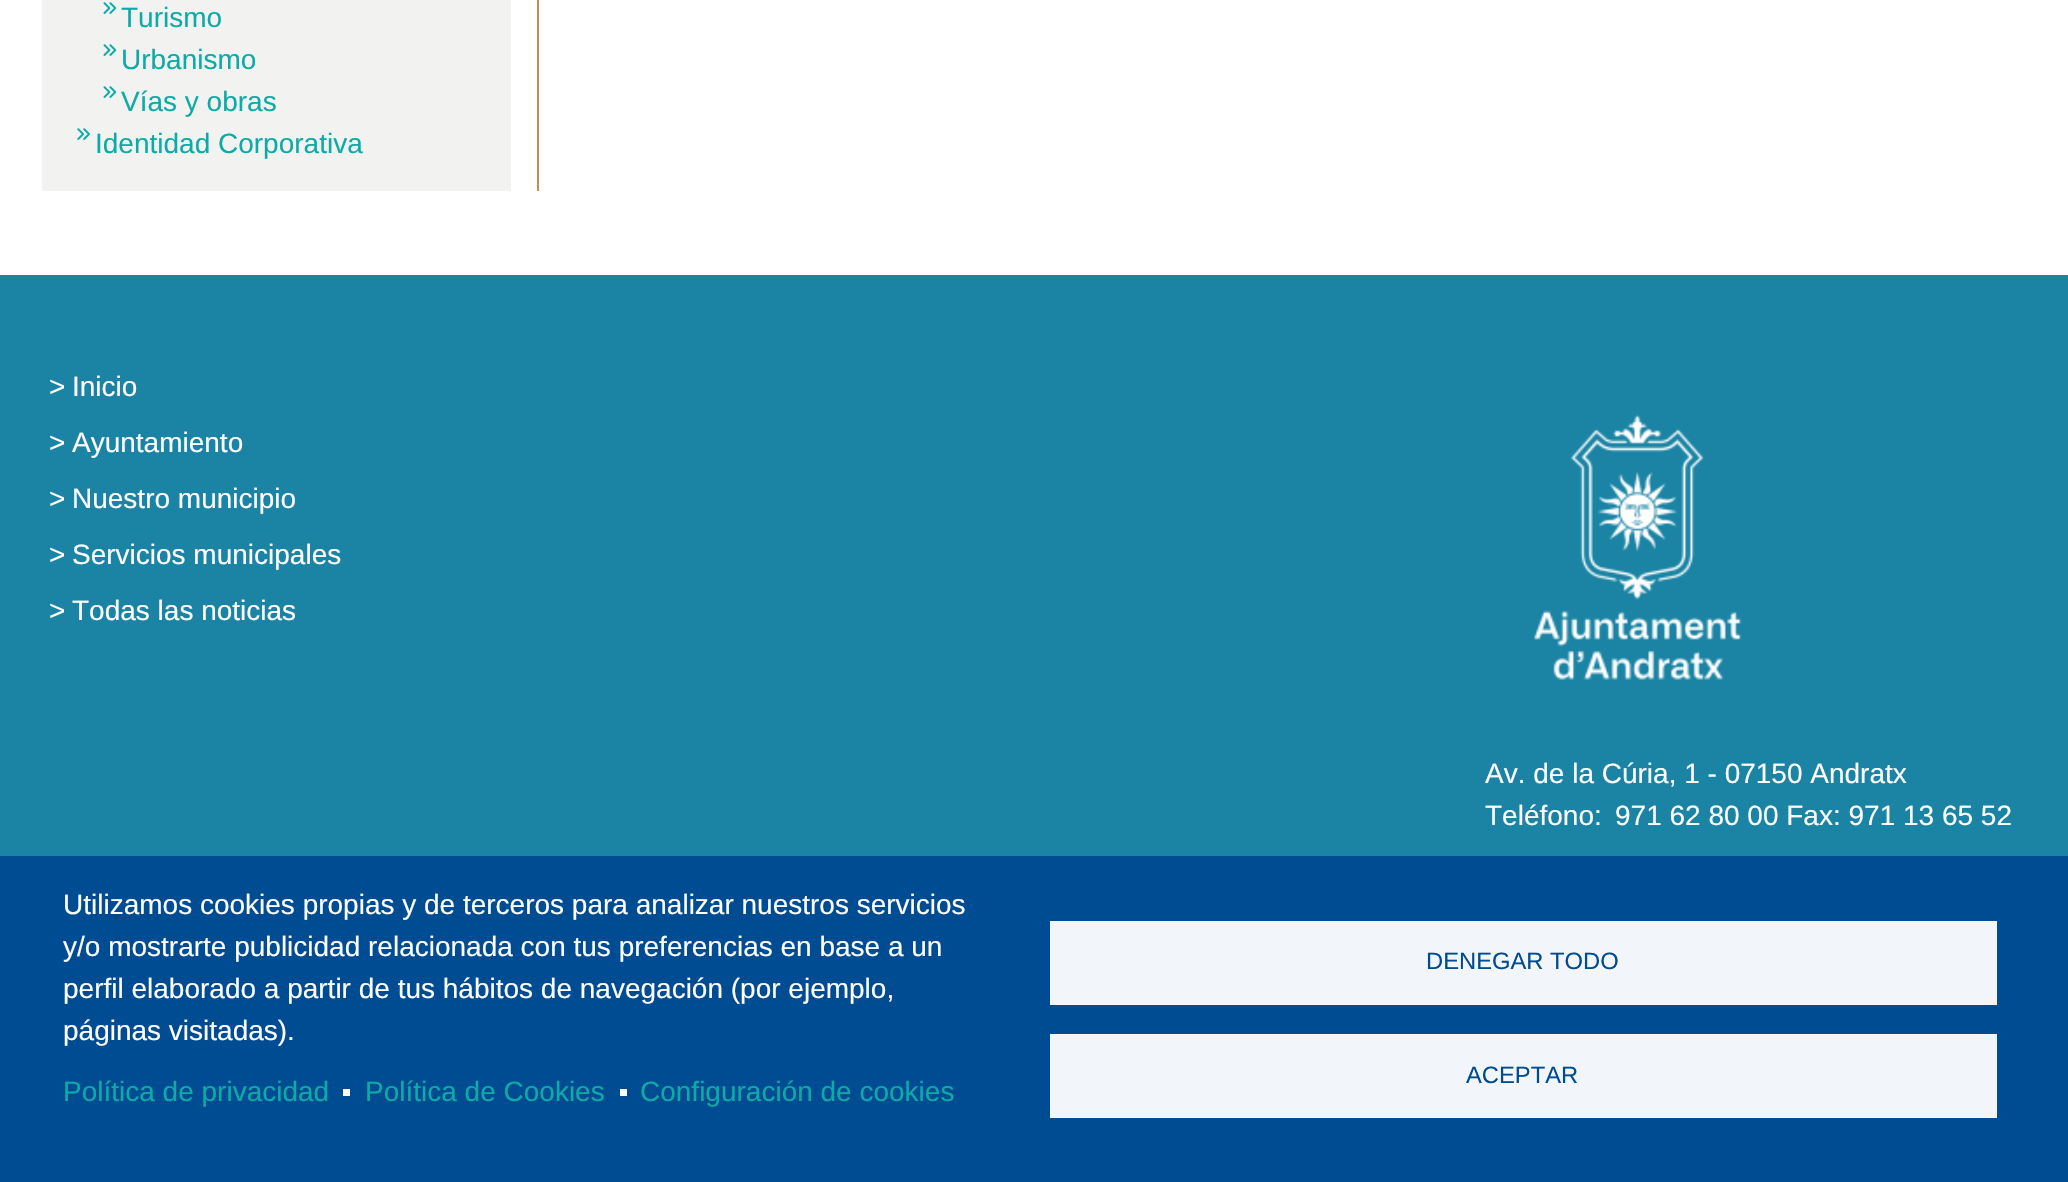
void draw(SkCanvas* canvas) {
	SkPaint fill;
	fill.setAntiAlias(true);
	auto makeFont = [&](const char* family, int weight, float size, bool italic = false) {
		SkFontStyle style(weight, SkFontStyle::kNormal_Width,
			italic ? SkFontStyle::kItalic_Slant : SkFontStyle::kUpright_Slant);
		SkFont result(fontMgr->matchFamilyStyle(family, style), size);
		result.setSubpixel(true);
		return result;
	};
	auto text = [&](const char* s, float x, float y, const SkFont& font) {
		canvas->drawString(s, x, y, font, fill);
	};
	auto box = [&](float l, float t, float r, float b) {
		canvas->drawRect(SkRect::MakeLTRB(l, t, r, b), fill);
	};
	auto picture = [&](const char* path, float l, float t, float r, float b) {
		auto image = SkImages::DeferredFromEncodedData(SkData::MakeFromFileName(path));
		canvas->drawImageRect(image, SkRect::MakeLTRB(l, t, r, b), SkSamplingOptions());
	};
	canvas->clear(0xFF1B84A4);
	fill.setColor(0xFFFFFFFF);
	box(0, 0, 2068, 275);
	fill.setColor(0xFFBE8E56);
	box(537, 0, 539, 191);
	fill.setColor(0xFFF2F2F1);
	box(42, 0, 511, 191);
	picture("image0.png", 103, 2, 117, 14);
	picture("image0.png", 103, 44, 117, 56);
	picture("image0.png", 103, 86, 117, 98);
	picture("image1.png", 77, 128, 90, 140);
	picture("image2.png", 1533, 414, 1742, 680);
	fill.setColor(0xFF004C93);
	box(0, 856, 2068, 1182);
	fill.setColor(0xFFFFFFFF);
	box(343, 1089, 350, 1096);
	box(620, 1089, 627, 1096);
	fill.setColor(0xFFF2F6FA);
	box(1050, 921, 1997, 1005);
	box(1050, 1034, 1997, 1118);
	auto font1 = makeFont("Liberation Sans", 400, 28);
	fill.setColor(0xFF0CABA8);
	text("Turismo", 121, 27, font1);
	text("Urbanismo", 121, 69, font1);
	text("Vías y obras", 121, 111, font1);
	text("Identidad Corporativa", 95, 153, font1);
	fill.setColor(0xFFFFFFFF);
	text(">", 49, 396, font1);
	text("Inicio", 72, 396, font1);
	text(">", 49, 452, font1);
	text("Ayuntamiento", 72, 452, font1);
	text(">", 49, 508, font1);
	text("Nuestro municipio", 72, 508, font1);
	text(">", 49, 564, font1);
	text("Servicios municipales", 72, 564, font1);
	text(">", 49, 620, font1);
	text("Todas las noticias", 72, 620, font1);
	text("Av. de la Cúria, 1 - 07150 Andratx", 1485, 783, font1);
	text("Teléfono:", 1485, 825, font1);
	text("971 62 80 00 Fax: 971 13 65 52", 1615, 825, font1);
	text("Utilizamos cookies propias y de terceros para analizar nuestros servicios", 63, 914, font1);
	text("y/o mostrarte publicidad relacionada con tus preferencias en base a un", 63, 956, font1);
	text("perfil elaborado a partir de tus hábitos de navegación (por ejemplo,", 63, 998, font1);
	text("páginas visitadas).", 63, 1040, font1);
	fill.setColor(0xFF0CABA8);
	text("Política de privacidad", 63, 1101, font1);
	text("Política de Cookies", 365, 1101, font1);
	text("Configuración de cookies", 640, 1101, font1);
	auto font2 = makeFont("Liberation Sans", 400, 23.75f);
	fill.setColor(0xFF004C93);
	text("DENEGAR TODO", 1426, 969, font2);
	text("ACEPTAR", 1466, 1083, font2);
}
